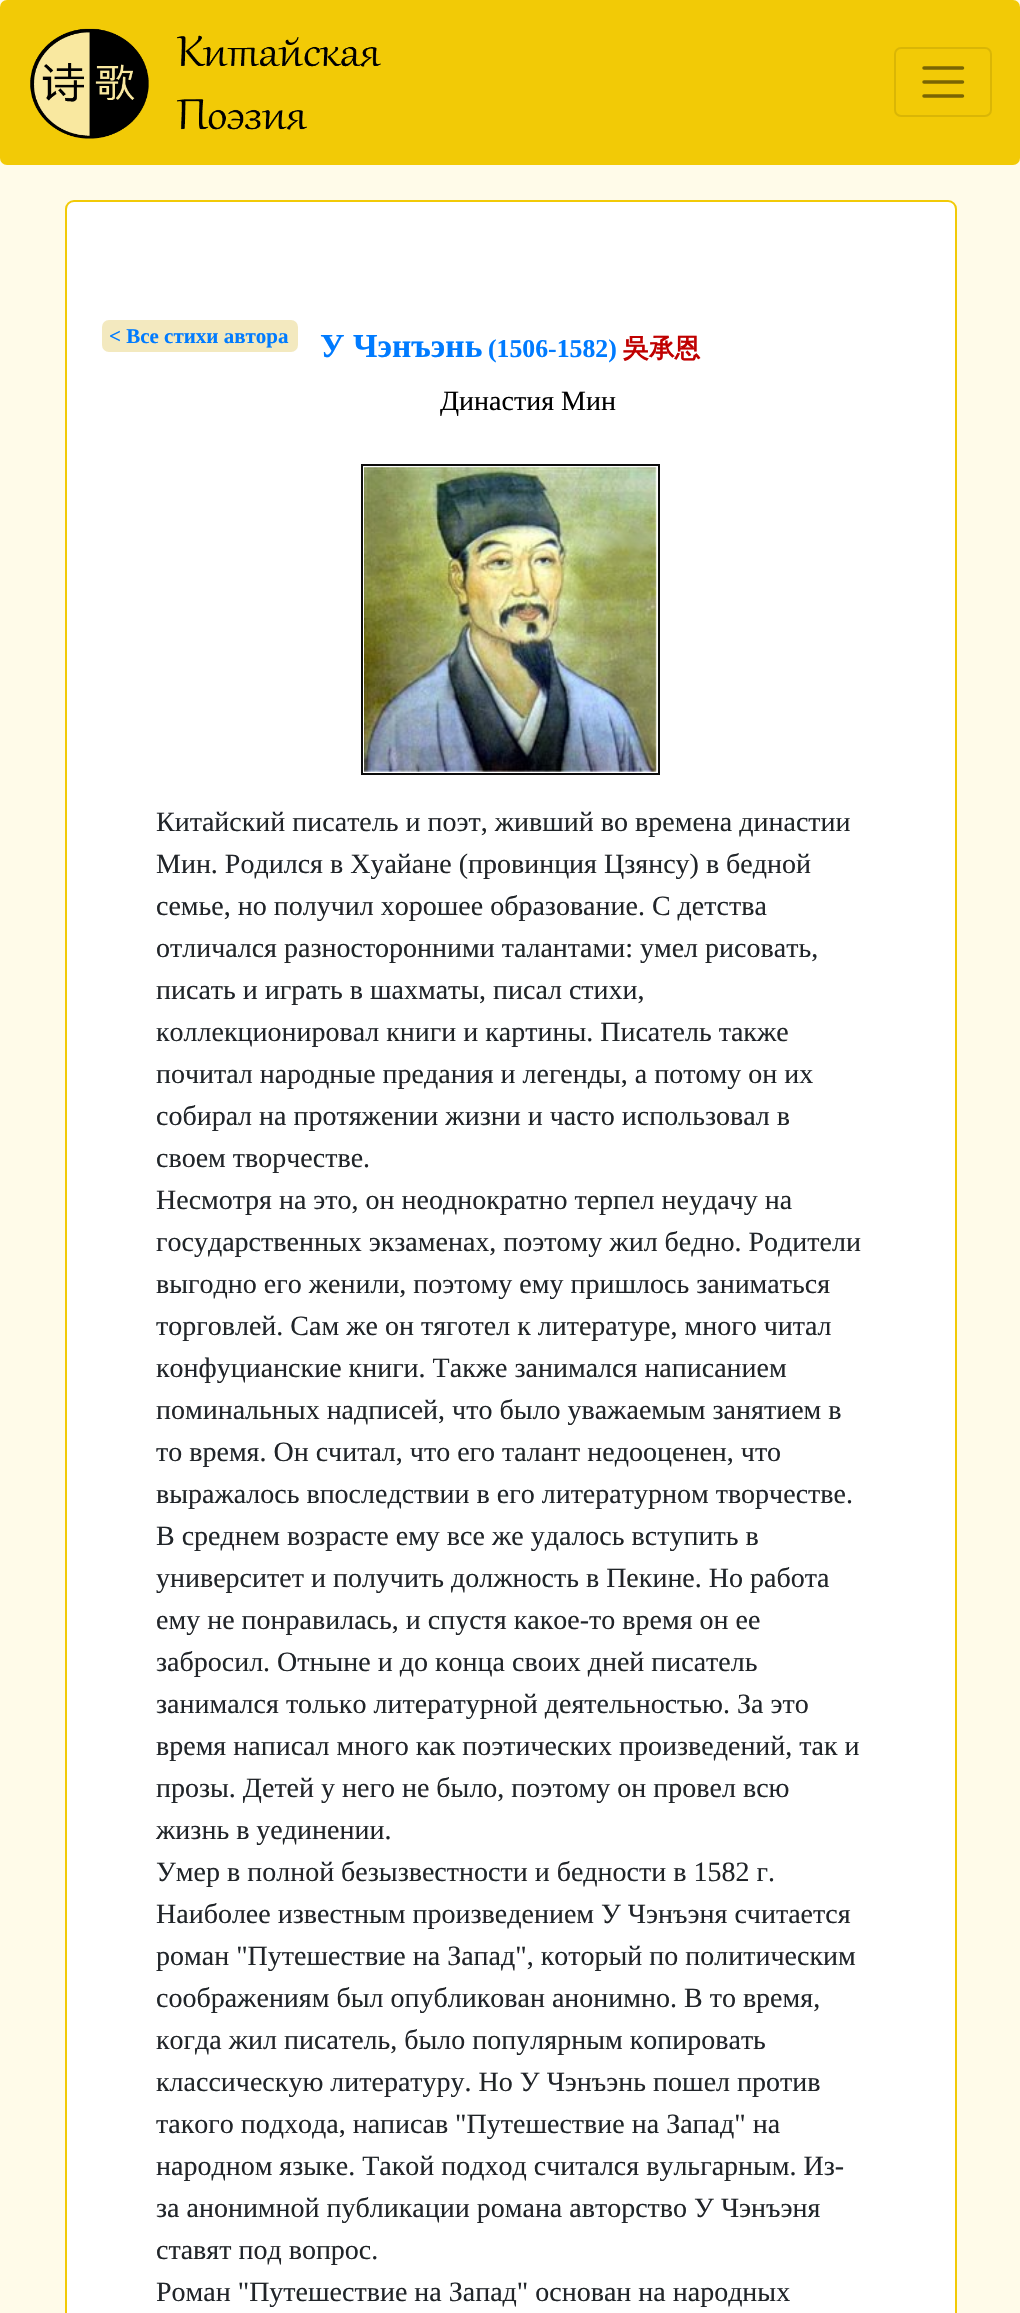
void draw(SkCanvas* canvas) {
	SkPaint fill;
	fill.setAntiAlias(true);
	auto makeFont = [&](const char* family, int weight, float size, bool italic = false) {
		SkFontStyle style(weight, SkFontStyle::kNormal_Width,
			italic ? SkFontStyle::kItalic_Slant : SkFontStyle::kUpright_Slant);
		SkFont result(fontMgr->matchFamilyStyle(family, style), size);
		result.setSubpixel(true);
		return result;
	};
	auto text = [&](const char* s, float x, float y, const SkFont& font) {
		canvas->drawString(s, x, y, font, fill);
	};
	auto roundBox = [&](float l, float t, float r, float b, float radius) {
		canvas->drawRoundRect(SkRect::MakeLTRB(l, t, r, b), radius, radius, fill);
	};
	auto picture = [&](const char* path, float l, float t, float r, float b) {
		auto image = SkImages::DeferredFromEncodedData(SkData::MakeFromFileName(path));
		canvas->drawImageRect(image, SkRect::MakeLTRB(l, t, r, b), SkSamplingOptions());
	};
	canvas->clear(0xFFFFFBE9);
	fill.setColor(0xFFF2CA06);
	roundBox(0, 0, 1020, 165, 7);
	picture("image0.png", 30, 28, 381, 139);
	fill.setStyle(SkPaint::kStroke_Style);
	fill.setStrokeWidth(2);
	fill.setColor(0xFFDAB605);
	canvas->drawRoundRect(SkRect::MakeLTRB(895, 48, 991, 116), 6, 6, fill);
	fill.setStrokeWidth(3.5f);
	fill.setStrokeCap(SkPaint::kRound_Cap);
	fill.setColor(0xFF796503);
	canvas->drawPath(SkPathBuilder().moveTo(924, 68).lineTo(962.5f, 68).moveTo(924, 82).lineTo(962.5f, 82).moveTo(924, 96).lineTo(962.5f, 96).detach(), fill);
	fill.setStyle(SkPaint::kFill_Style);
	fill.setColor(0xFFFFFFFF);
	canvas->drawRoundRect(SkRect::MakeLTRB(66, 201, 956, 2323), 8, 8, fill);
	fill.setStyle(SkPaint::kStroke_Style);
	fill.setStrokeWidth(2);
	fill.setStrokeCap(SkPaint::kButt_Cap);
	fill.setColor(0xFFF2CA06);
	canvas->drawRoundRect(SkRect::MakeLTRB(66, 201, 956, 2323), 8, 8, fill);
	fill.setStyle(SkPaint::kFill_Style);
	fill.setColor(0xFFF3E9BF);
	roundBox(102, 320, 298, 352, 7);
	fill.setStyle(SkPaint::kStroke_Style);
	fill.setColor(0xFF0C0C0C);
	canvas->drawRect(SkRect::MakeLTRB(362, 465, 659, 774), fill);
	picture("image1.png", 364, 467, 657, 772);
	auto font1 = makeFont("Liberation Serif", 700, 21);
	fill.setStyle(SkPaint::kFill_Style);
	fill.setColor(0xFF007BFF);
	text("< Bсе стихи автора", 109, 343, font1);
	auto font2 = makeFont("Liberation Serif", 700, 33.5f);
	text("У Чэнъэнь", 320, 357, font2);
	auto font3 = makeFont("Liberation Serif", 700, 25.75f);
	text("(1506-1582)", 488, 357, font3);
	auto font4 = makeFont("WenQuanYi Zen Hei", 700, 25.75f);
	fill.setColor(0xFFC00000);
	text("吳承恩", 623, 357, font4);
	auto font5 = makeFont("Liberation Serif", 400, 28);
	fill.setColor(0xFF000000);
	text("Династия Мин", 440, 410, font5);
	fill.setColor(0xFF212529);
	text("Китайский писатель и поэт, живший во времена династии", 156, 831, font5);
	text("Мин. Родился в Хуайане (провинция Цзянсу) в бедной", 156, 873, font5);
	text("семье, но получил хорошее образование. С детства", 156, 915, font5);
	text("отличался разносторонними талантами: умел рисовать,", 156, 957, font5);
	text("писать и играть в шахматы, писал стихи,", 156, 999, font5);
	text("коллекционировал книги и картины. Писатель также", 156, 1041, font5);
	text("почитал народные предания и легенды, а потому он их", 156, 1083, font5);
	text("собирал на протяжении жизни и часто использовал в", 156, 1125, font5);
	text("своем творчестве.", 156, 1167, font5);
	text("Несмотря на это, он неоднократно терпел неудачу на", 156, 1209, font5);
	text("государственных экзаменах, поэтому жил бедно. Родители", 156, 1251, font5);
	text("выгодно его женили, поэтому ему пришлось заниматься", 156, 1293, font5);
	text("торговлей. Сам же он тяготел к литературе, много читал", 156, 1335, font5);
	text("конфуцианские книги. Также занимался написанием", 156, 1377, font5);
	text("поминальных надписей, что было уважаемым занятием в", 156, 1419, font5);
	text("то время. Он считал, что его талант недооценен, что", 156, 1461, font5);
	text("выражалось впоследствии в его литературном творчестве.", 156, 1503, font5);
	text("В среднем возрасте ему все же удалось вступить в", 156, 1545, font5);
	text("университет и получить должность в Пекине. Но работа", 156, 1587, font5);
	text("ему не понравилась, и спустя какое-то время он ее", 156, 1629, font5);
	text("забросил. Отныне и до конца своих дней писатель", 156, 1671, font5);
	text("занимался только литературной деятельностью. За это", 156, 1713, font5);
	text("время написал много как поэтических произведений, так и", 156, 1755, font5);
	text("прозы. Детей у него не было, поэтому он провел всю", 156, 1797, font5);
	text("жизнь в уединении.", 156, 1839, font5);
	text("Умер в полной безызвестности и бедности в 1582 г.", 156, 1881, font5);
	text("Наиболее известным произведением У Чэнъэня считается", 156, 1923, font5);
	text("роман \"Путешествие на Запад\", который по политическим", 156, 1965, font5);
	text("соображениям был опубликован анонимно. В то время,", 156, 2007, font5);
	text("когда жил писатель, было популярным копировать", 156, 2049, font5);
	text("классическую литературу. Но У Чэнъэнь пошел против", 156, 2091, font5);
	text("такого подхода, написав \"Путешествие на Запад\" на", 156, 2133, font5);
	text("народном языке. Такой подход считался вульгарным. Из-", 156, 2175, font5);
	text("за анонимной публикации романа авторство У Чэнъэня", 156, 2217, font5);
	text("ставят под вопрос.", 156, 2259, font5);
	text("Роман \"Путешествие на Запад\" основан на народных", 156, 2301, font5);
}
